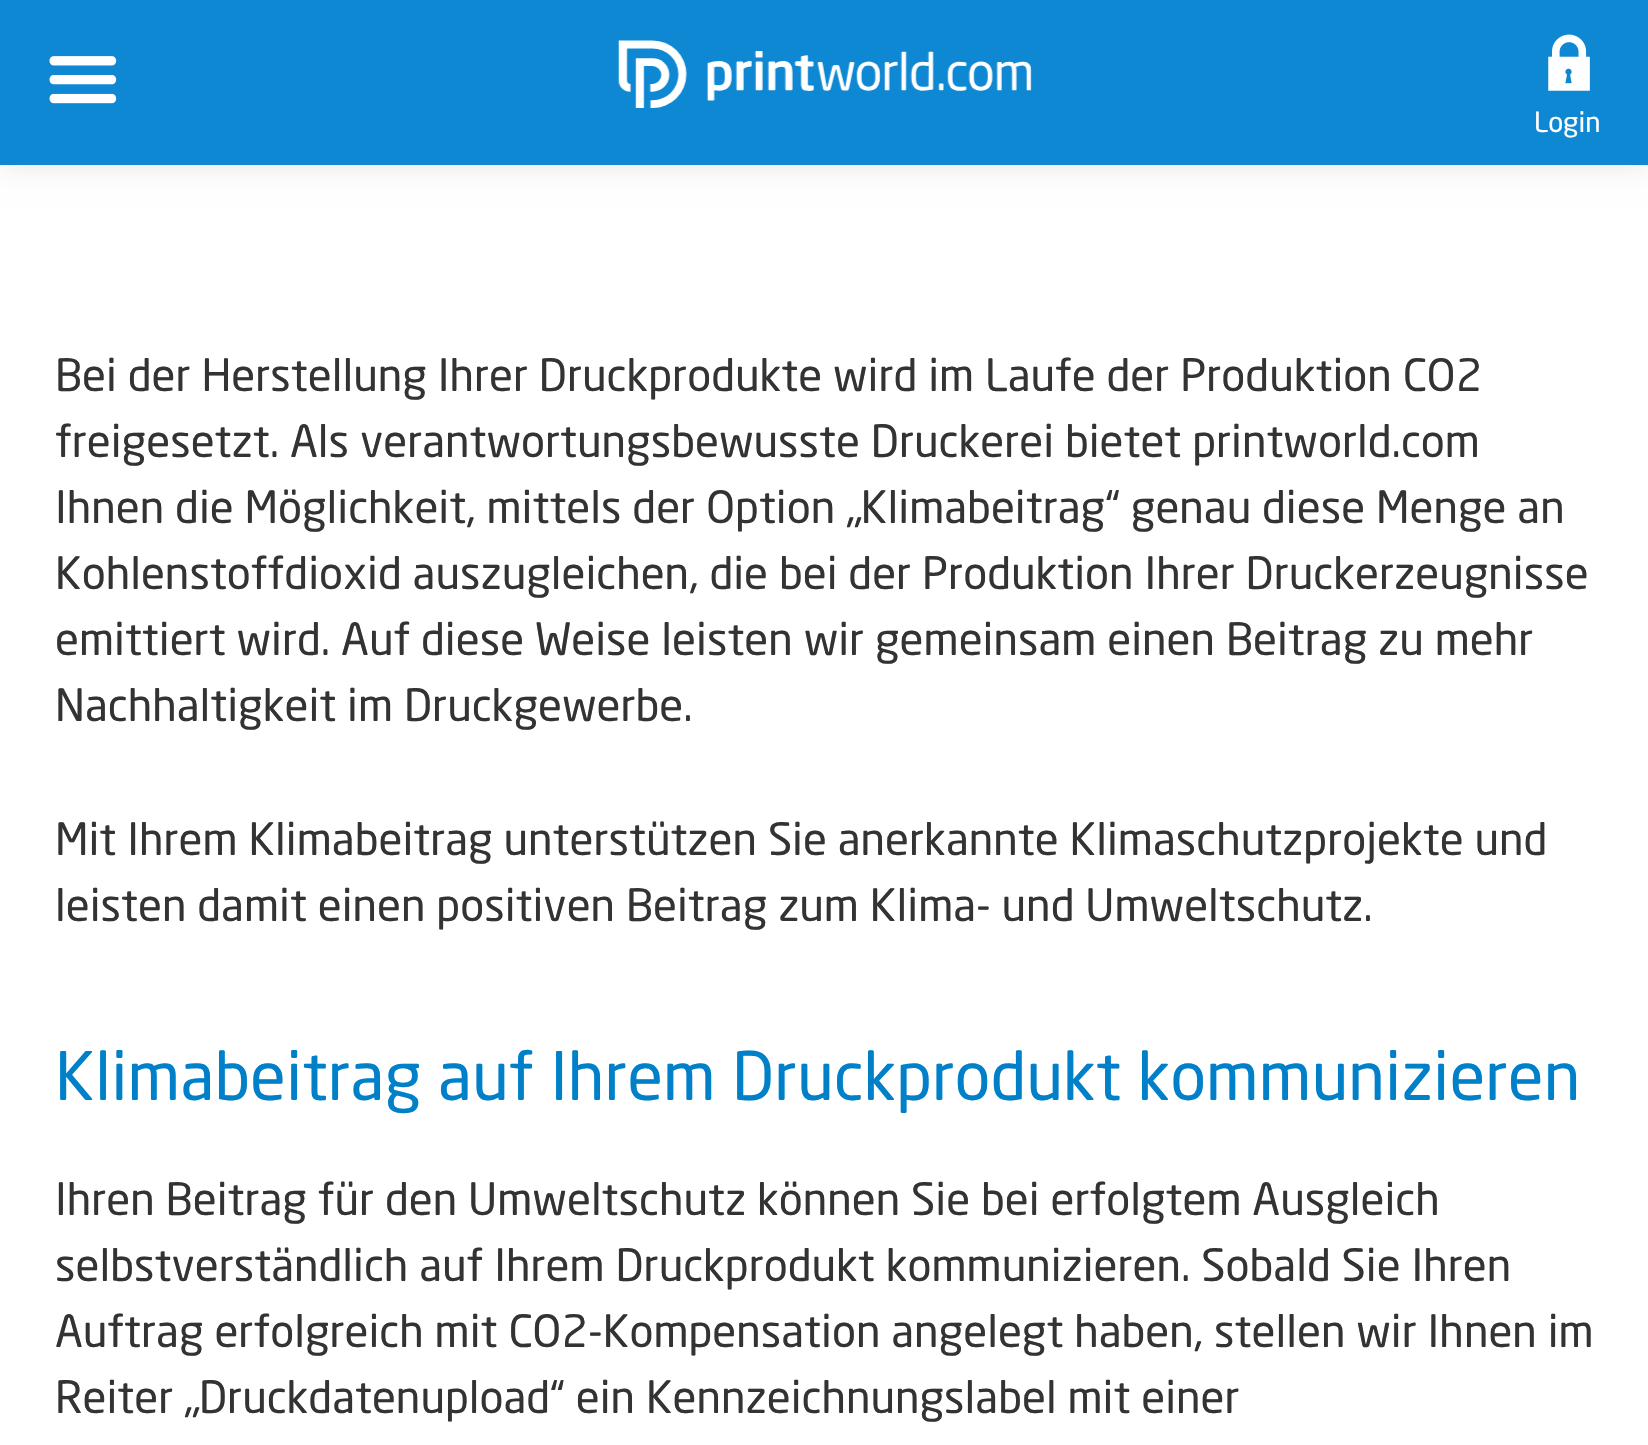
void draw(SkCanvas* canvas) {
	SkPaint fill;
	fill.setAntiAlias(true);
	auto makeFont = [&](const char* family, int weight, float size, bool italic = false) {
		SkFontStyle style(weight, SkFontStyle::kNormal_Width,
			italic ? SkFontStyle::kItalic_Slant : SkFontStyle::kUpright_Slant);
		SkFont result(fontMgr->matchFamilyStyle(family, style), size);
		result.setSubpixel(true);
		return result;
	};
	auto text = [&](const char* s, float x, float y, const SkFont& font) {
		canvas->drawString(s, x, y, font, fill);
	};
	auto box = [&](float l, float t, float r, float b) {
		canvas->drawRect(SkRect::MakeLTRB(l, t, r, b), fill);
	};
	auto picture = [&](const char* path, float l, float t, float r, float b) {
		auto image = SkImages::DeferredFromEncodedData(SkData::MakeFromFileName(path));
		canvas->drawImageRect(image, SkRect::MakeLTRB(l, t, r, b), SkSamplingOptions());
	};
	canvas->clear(0xFFFFFFFF);
	fill.setColor(0x1A000000);
	fill.setMaskFilter(SkMaskFilter::MakeBlur(kNormal_SkBlurStyle, 14));
	canvas->drawRect(SkRect::MakeLTRB(0, 0, 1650, 165), fill);
	fill.setMaskFilter(nullptr);
	fill.setColor(0xFF0E88D3);
	box(0, 0, 1648, 165);
	picture("image0.png", 618, 40, 1032, 108);
	picture("image1.png", 49, 56, 117, 104);
	picture("image2.png", 1548, 34, 1590, 91);
	auto font1 = makeFont("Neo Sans", 400, 27.5f);
	fill.setColor(0xFFFFFFFF);
	text("Login", 1534, 132, font1);
	auto font2 = makeFont("Neo Sans", 400, 44);
	fill.setColor(0xFF333333);
	text("Bei der Herstellung Ihrer Druckprodukte wird im Laufe der Produktion CO2", 55, 391, font2);
	text("freigesetzt. Als verantwortungsbewusste Druckerei bietet printworld.com", 55, 457, font2);
	text("Ihnen die Möglichkeit, mittels der Option „Klimabeitrag“ genau diese Menge an", 55, 523, font2);
	text("Kohlenstoffdioxid auszugleichen, die bei der Produktion Ihrer Druckerzeugnisse", 55, 589, font2);
	text("emittiert wird. Auf diese Weise leisten wir gemeinsam einen Beitrag zu mehr", 55, 655, font2);
	text("Nachhaltigkeit im Druckgewerbe.", 55, 721, font2);
	text("Mit Ihrem Klimabeitrag unterstützen Sie anerkannte Klimaschutzprojekte und", 55, 855, font2);
	text("leisten damit einen positiven Beitrag zum Klima- und Umweltschutz.", 55, 921, font2);
	auto font3 = makeFont("Neo Sans", 400, 66);
	fill.setColor(0xFF0080C8);
	text("Klimabeitrag auf Ihrem Druckprodukt kommunizieren", 55, 1100, font3);
	fill.setColor(0xFF333333);
	text("Ihren Beitrag für den Umweltschutz können Sie bei erfolgtem Ausgleich", 55, 1215, font2);
	text("selbstverständlich auf Ihrem Druckprodukt kommunizieren. Sobald Sie Ihren", 55, 1281, font2);
	text("Auftrag erfolgreich mit CO2-Kompensation angelegt haben, stellen wir Ihnen im", 55, 1347, font2);
	text("Reiter „Druckdatenupload“ ein Kennzeichnungslabel mit einer", 55, 1413, font2);
}
